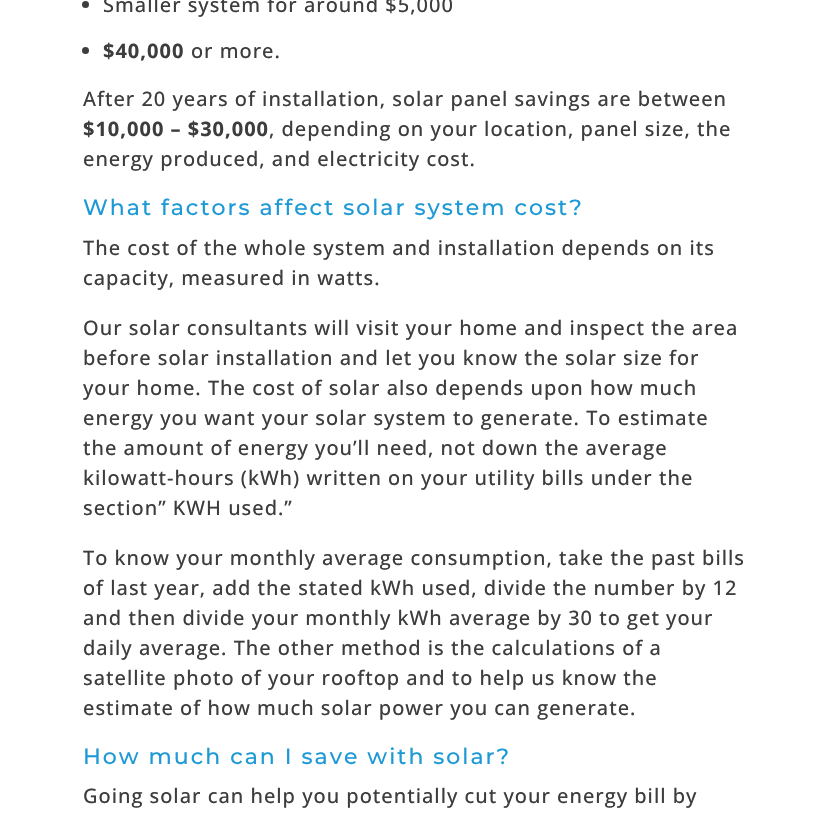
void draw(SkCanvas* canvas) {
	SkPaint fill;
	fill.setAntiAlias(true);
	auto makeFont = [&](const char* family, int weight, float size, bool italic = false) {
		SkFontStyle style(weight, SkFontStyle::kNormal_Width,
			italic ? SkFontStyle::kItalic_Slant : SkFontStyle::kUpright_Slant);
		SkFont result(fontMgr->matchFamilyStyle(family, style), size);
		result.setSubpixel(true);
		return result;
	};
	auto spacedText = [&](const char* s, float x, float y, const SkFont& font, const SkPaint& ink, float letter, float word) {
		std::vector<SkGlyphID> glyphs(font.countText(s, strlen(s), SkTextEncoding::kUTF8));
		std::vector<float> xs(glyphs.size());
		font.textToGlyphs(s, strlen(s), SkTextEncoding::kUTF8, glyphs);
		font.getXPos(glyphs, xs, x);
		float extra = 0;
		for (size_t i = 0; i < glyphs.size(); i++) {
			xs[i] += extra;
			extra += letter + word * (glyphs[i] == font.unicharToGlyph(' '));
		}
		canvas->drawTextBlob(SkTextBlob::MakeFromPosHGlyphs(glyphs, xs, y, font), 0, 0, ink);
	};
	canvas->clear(0xFFFFFFFF);
	fill.setColor(0xFF3D3D3D);
	canvas->drawCircle(85.5f, 4.5f, 3.5f, fill);
	canvas->drawCircle(85.5f, 50.5f, 3.5f, fill);
	auto font1 = makeFont("Open Sans", 500, 20);
	spacedText("Smaller system for around $5,000", 103, 12, font1, fill, 1, 0);
	auto font2 = makeFont("Open Sans", 700, 20);
	spacedText("$40,000", 103, 58, font2, fill, 1, 0);
	spacedText("or more.", 191, 58, font1, fill, 1, 0);
	spacedText("After 20 years of installation, solar panel savings are between", 83, 106, font1, fill, 1, 0);
	spacedText("$10,000 – $30,000", 83, 136, font2, fill, 1, 0);
	spacedText(", depending on your location, panel size, the", 269, 136, font1, fill, 1, 0);
	spacedText("energy produced, and electricity cost.", 83, 166, font1, fill, 1, 0);
	auto font3 = makeFont("Montserrat", 100, 22);
	fill.setColor(0xFF1D9AD6);
	spacedText("What factors affect solar system cost?", 83, 215, font3, fill, 2, 0);
	fill.setColor(0xFF3D3D3D);
	spacedText("The cost of the whole system and installation depends on its", 83, 255, font1, fill, 1, 0);
	spacedText("capacity, measured in watts.", 83, 285, font1, fill, 1, 0);
	spacedText("Our solar consultants will visit your home and inspect the area", 83, 335, font1, fill, 1, 0);
	spacedText("before solar installation and let you know the solar size for", 83, 365, font1, fill, 1, 0);
	spacedText("your home. The cost of solar also depends upon how much", 83, 395, font1, fill, 1, 0);
	spacedText("energy you want your solar system to generate. To estimate", 83, 425, font1, fill, 1, 0);
	spacedText("the amount of energy you’ll need, not down the average", 83, 455, font1, fill, 1, 0);
	spacedText("kilowatt-hours (kWh) written on your utility bills under the", 83, 485, font1, fill, 1, 0);
	spacedText("section” KWH used.”", 83, 515, font1, fill, 1, 0);
	spacedText("To know your monthly average consumption, take the past bills", 83, 565, font1, fill, 1, 0);
	spacedText("of last year, add the stated kWh used, divide the number by 12", 83, 595, font1, fill, 1, 0);
	spacedText("and then divide your monthly kWh average by 30 to get your", 83, 625, font1, fill, 1, 0);
	spacedText("daily average. The other method is the calculations of a", 83, 655, font1, fill, 1, 0);
	spacedText("satellite photo of your rooftop and to help us know the", 83, 685, font1, fill, 1, 0);
	spacedText("estimate of how much solar power you can generate.", 83, 715, font1, fill, 1, 0);
	fill.setColor(0xFF1D9AD6);
	spacedText("How much can I save with solar?", 83, 764, font3, fill, 2, 0);
	fill.setColor(0xFF3D3D3D);
	spacedText("Going solar can help you potentially cut your energy bill by", 83, 803, font1, fill, 1, 0);
}
